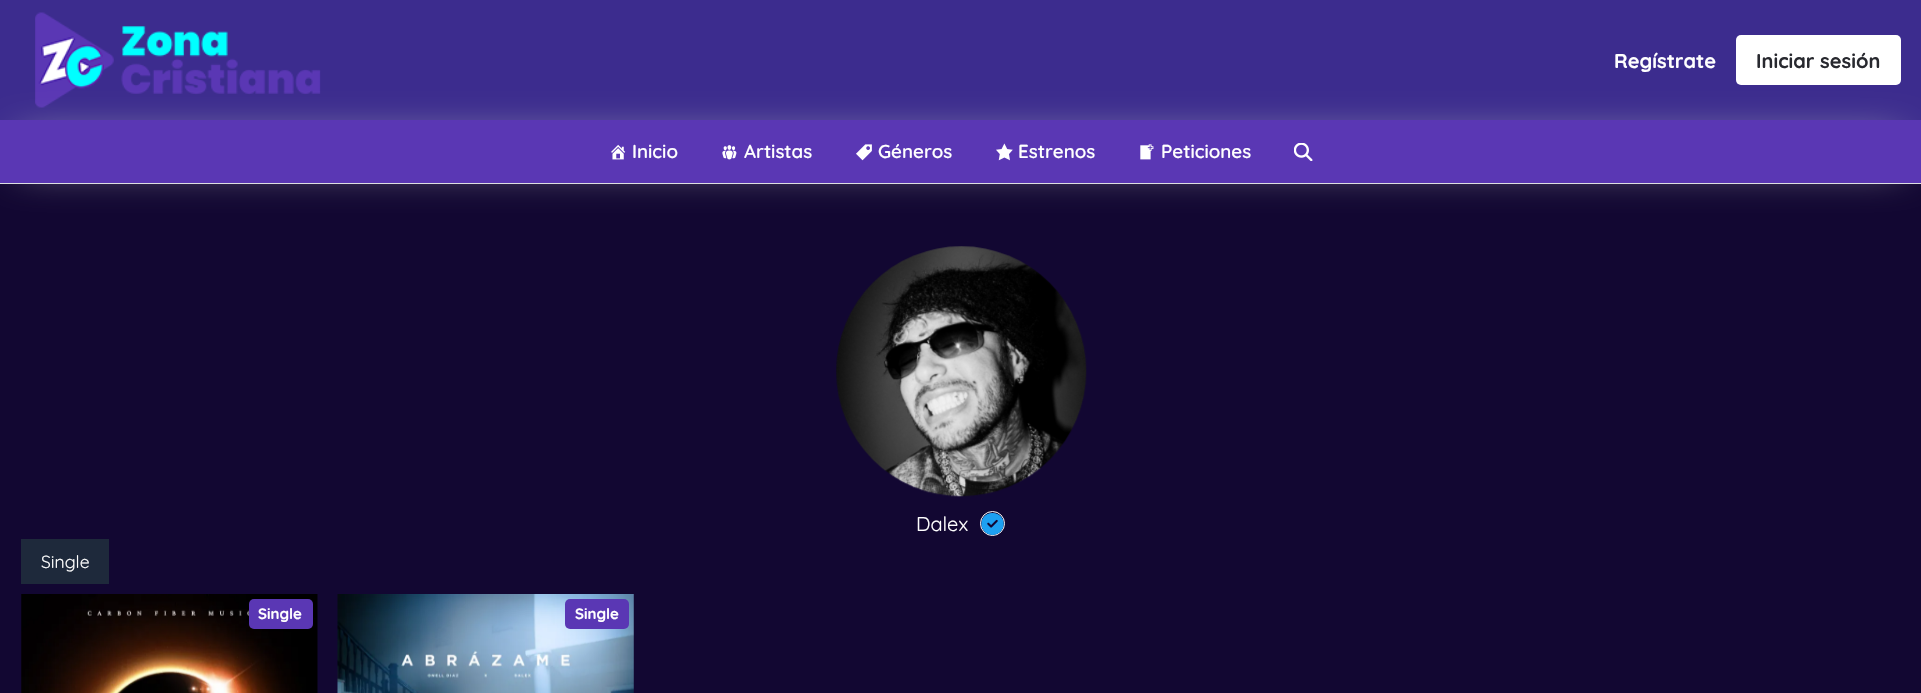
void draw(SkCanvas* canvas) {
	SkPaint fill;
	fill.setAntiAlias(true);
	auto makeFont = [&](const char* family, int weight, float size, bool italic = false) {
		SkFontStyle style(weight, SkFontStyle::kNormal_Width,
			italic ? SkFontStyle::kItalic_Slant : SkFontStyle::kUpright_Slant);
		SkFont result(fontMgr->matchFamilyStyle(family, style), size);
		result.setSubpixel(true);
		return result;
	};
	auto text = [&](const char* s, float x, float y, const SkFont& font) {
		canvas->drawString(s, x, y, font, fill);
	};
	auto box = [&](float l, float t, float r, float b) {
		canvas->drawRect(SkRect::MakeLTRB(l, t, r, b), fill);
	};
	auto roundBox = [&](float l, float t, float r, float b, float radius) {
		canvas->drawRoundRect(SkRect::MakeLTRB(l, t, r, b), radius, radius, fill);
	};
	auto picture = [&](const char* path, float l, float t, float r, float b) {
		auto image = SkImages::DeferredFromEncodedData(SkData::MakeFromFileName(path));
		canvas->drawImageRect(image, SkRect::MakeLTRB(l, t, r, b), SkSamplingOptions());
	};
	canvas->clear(0xFF120732);
	fill.setColor(0xFF3C2C8E);
	box(0, 0, 1921, 120);
	picture("image0.png", 35, 12, 321, 108);
	fill.setColor(0xFFFFFFFF);
	roundBox(1736, 35, 1901, 85, 5);
	fill.setColor(0xFFBABCC1);
	fill.setMaskFilter(SkMaskFilter::MakeBlur(kNormal_SkBlurStyle, 20));
	canvas->drawRect(SkRect::MakeLTRB(20, 140, 1901, 164), fill);
	fill.setMaskFilter(nullptr);
	fill.setColor(0xFF5A37B4);
	box(0, 120, 1921, 183);
	picture("image1.png", 611, 144, 626, 160);
	picture("image2.png", 722, 145, 737, 160);
	picture("image3.png", 856, 144, 872, 161);
	picture("image4.png", 996, 143, 1013, 161);
	picture("image5.png", 1140, 144, 1154, 160);
	picture("image6.png", 1294, 143, 1313, 161);
	fill.setColor(0xFFDDDFE2);
	box(0, 183, 1921, 184);
	picture("image7.png", 836, 246, 1087, 497);
	fill.setStyle(SkPaint::kStroke_Style);
	fill.setStrokeWidth(1);
	fill.setColor(0xFFFFFFFF);
	canvas->drawCircle(992.5f, 523.5f, 12, fill);
	picture("image8.png", 981, 513, 1004, 535);
	fill.setStyle(SkPaint::kFill_Style);
	fill.setColor(0xFF1E293B);
	box(21, 539, 109, 584);
	picture("image9.png", 21, 594, 318, 693);
	fill.setColor(0xFF5A37B4);
	roundBox(249, 599, 313, 629, 5);
	picture("image10.png", 337, 594, 634, 693);
	roundBox(565, 599, 629, 629, 5);
	auto font1 = makeFont("Quicksand", 700, 20);
	fill.setColor(0xFFFFFFFF);
	text("Regístrate", 1614, 68, font1);
	fill.setColor(0xFF28292F);
	text("Iniciar sesión", 1756, 68, font1);
	auto font2 = makeFont("Quicksand", 600, 18.75f);
	fill.setColor(0xFFFFFFFF);
	text("Inicio", 632, 158, font2);
	text("Artistas", 744, 158, font2);
	text("Géneros", 878, 158, font2);
	text("Estrenos", 1018, 158, font2);
	text("Peticiones", 1161, 158, font2);
	auto font3 = makeFont("Quicksand", 400, 20);
	text("Dalex", 916, 531, font3);
	auto font4 = makeFont("Quicksand", 400, 17.5f);
	text("Single", 41, 568, font4);
	auto font5 = makeFont("Quicksand", 700, 15);
	text("Single", 258, 619, font5);
	text("Single", 575, 619, font5);
}
